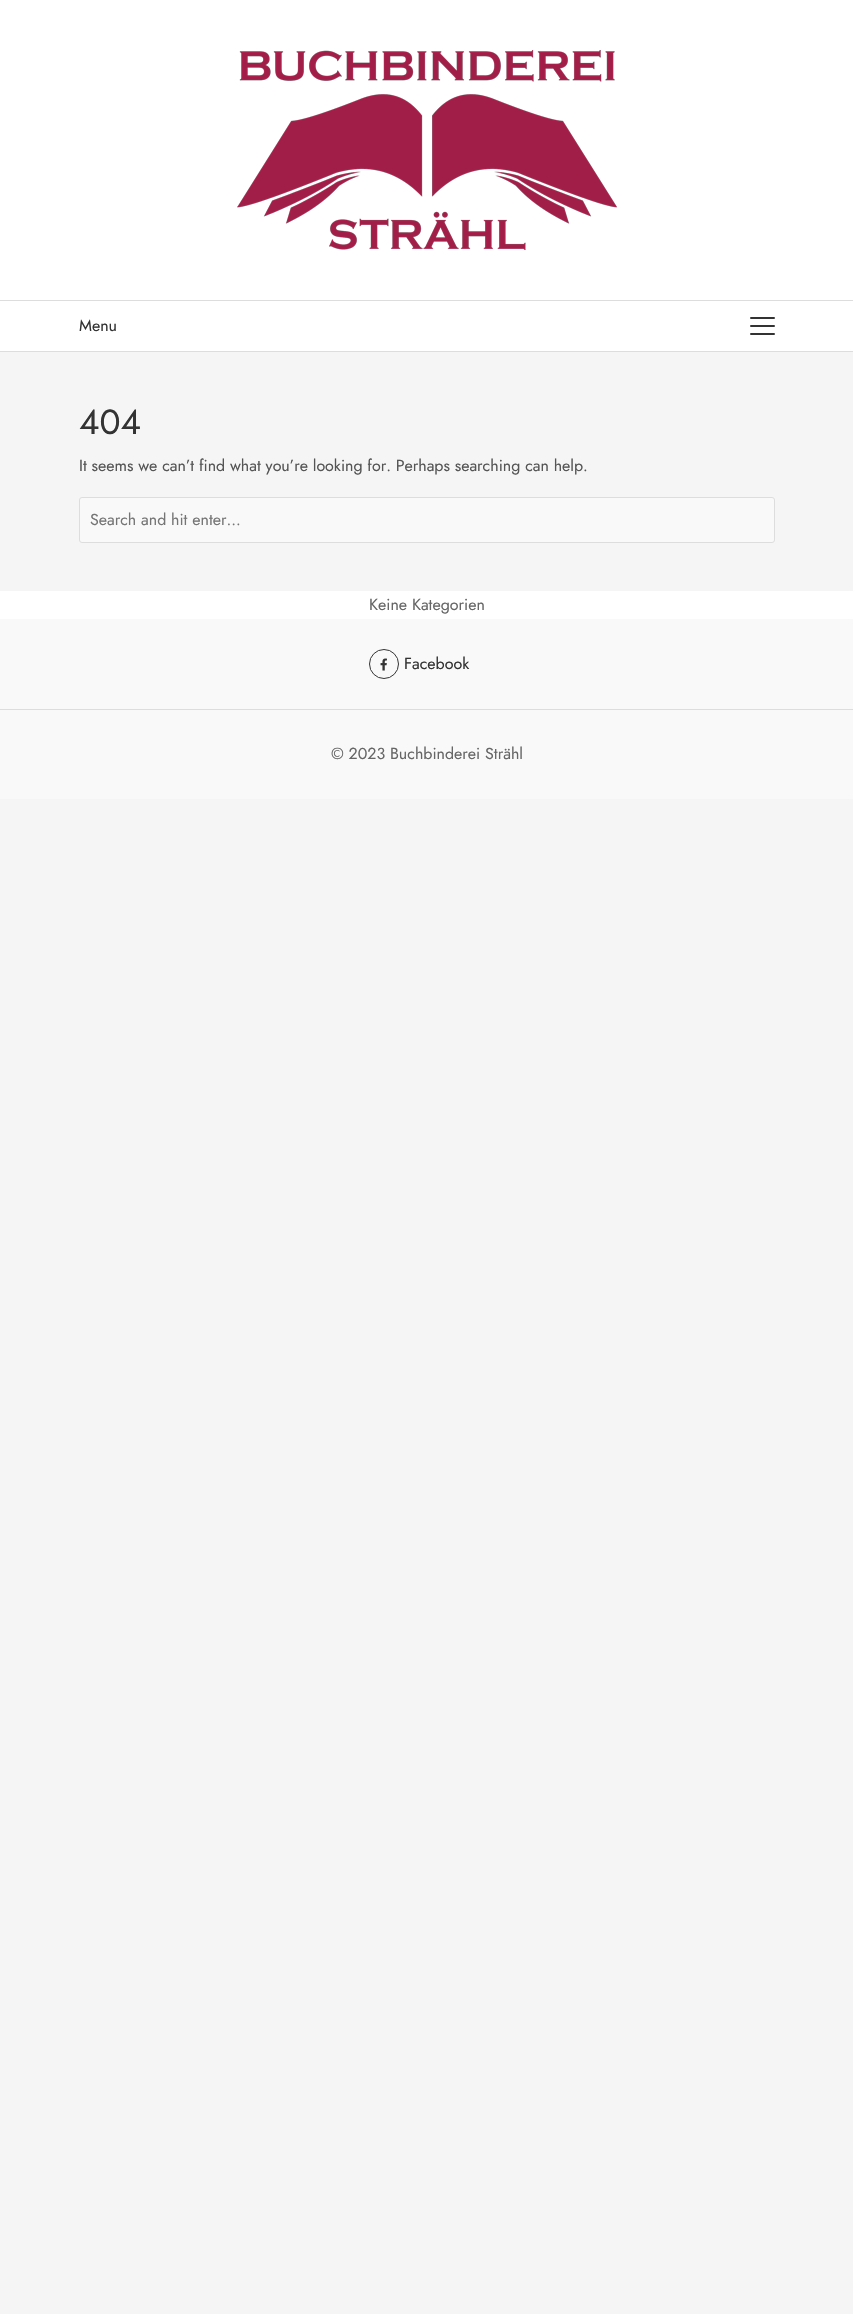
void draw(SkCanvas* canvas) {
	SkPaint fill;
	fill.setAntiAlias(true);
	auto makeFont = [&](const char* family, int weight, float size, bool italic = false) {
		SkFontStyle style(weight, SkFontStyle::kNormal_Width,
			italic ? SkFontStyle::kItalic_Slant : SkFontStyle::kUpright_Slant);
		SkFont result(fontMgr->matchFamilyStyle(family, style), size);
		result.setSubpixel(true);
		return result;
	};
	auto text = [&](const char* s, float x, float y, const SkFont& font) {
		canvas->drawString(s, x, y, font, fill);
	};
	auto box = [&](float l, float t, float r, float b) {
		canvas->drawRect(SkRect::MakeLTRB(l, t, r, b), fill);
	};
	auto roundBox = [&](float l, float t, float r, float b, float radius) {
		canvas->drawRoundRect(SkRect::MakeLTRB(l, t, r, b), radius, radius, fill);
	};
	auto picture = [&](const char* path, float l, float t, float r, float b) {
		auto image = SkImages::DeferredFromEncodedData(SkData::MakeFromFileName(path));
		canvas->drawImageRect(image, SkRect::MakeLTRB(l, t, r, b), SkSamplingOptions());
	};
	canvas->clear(0xFFF5F5F5);
	fill.setColor(0xFFFFFFFF);
	box(0, 0, 853, 351);
	picture("image0.png", 237, 50, 617, 250);
	fill.setColor(0xFFDDDDDD);
	box(0, 300, 853, 301);
	box(0, 351, 853, 352);
	fill.setColor(0xFF333333);
	roundBox(750, 317, 775, 319, 1);
	roundBox(750, 325, 775, 327, 1);
	roundBox(750, 333, 775, 335, 1);
	fill.setColor(0xFFF9F9F9);
	canvas->drawRoundRect(SkRect::MakeLTRB(79.5f, 497.5f, 774.5f, 542.5f), 2.5f, 2.5f, fill);
	fill.setStyle(SkPaint::kStroke_Style);
	fill.setStrokeWidth(1);
	fill.setColor(0xFFDDDDDD);
	canvas->drawRoundRect(SkRect::MakeLTRB(79.5f, 497.5f, 774.5f, 542.5f), 2.5f, 2.5f, fill);
	fill.setStyle(SkPaint::kFill_Style);
	fill.setColor(0xFFF9F9F9);
	box(0, 619, 853, 799);
	fill.setColor(0xFFFFFFFF);
	box(0, 591, 853, 619);
	fill.setStyle(SkPaint::kStroke_Style);
	fill.setColor(0xFF333333);
	canvas->drawCircle(384, 664, 14.5f, fill);
	picture("image1.png", 380, 658, 387, 671);
	fill.setStyle(SkPaint::kFill_Style);
	fill.setColor(0xFFDDDDDD);
	box(0, 709, 853, 710);
	auto font1 = makeFont("Jost", 400, 16);
	fill.setColor(0xFF333333);
	text("Menu", 79, 331, font1);
	auto font2 = makeFont("Jost", 400, 35);
	text("404", 79, 434, font2);
	fill.setColor(0xFF555555);
	text("It seems we can’t find what you’re looking for. Perhaps searching can help.", 79, 471, font1);
	fill.setColor(0xFF757575);
	text("Search and hit enter...", 90, 525, font1);
	fill.setColor(0xFF666666);
	text("Keine Kategorien", 369, 610, font1);
	fill.setColor(0xFF333333);
	text("Facebook", 404, 669, font1);
	fill.setColor(0xFF666666);
	text("© 2023 Buchbinderei Strähl", 331, 759, font1);
}
